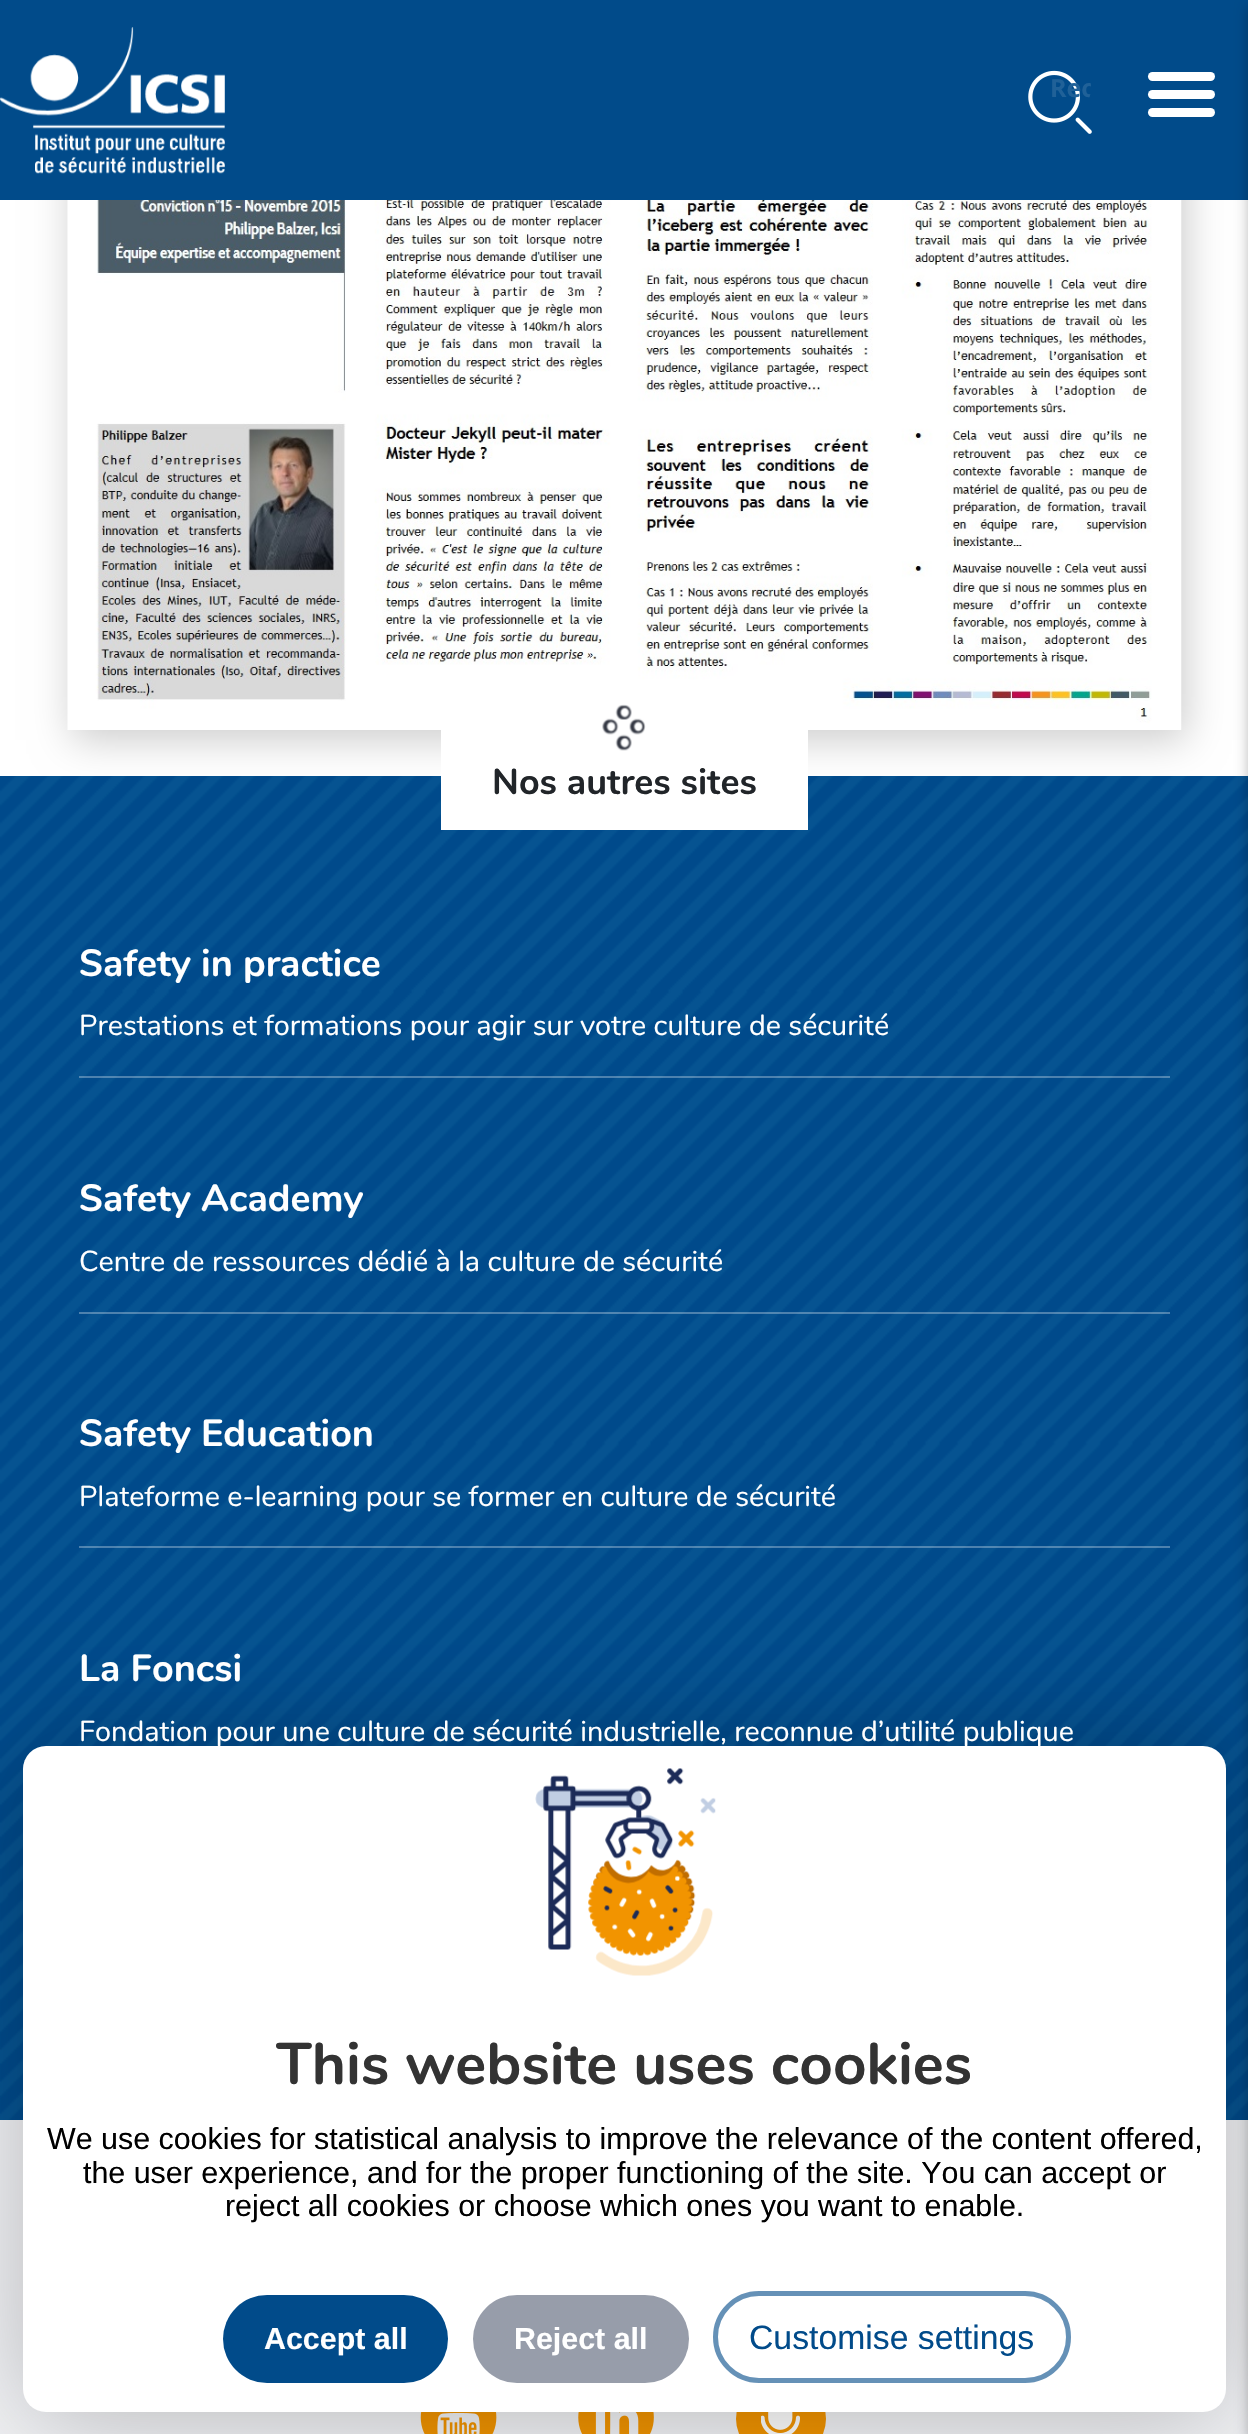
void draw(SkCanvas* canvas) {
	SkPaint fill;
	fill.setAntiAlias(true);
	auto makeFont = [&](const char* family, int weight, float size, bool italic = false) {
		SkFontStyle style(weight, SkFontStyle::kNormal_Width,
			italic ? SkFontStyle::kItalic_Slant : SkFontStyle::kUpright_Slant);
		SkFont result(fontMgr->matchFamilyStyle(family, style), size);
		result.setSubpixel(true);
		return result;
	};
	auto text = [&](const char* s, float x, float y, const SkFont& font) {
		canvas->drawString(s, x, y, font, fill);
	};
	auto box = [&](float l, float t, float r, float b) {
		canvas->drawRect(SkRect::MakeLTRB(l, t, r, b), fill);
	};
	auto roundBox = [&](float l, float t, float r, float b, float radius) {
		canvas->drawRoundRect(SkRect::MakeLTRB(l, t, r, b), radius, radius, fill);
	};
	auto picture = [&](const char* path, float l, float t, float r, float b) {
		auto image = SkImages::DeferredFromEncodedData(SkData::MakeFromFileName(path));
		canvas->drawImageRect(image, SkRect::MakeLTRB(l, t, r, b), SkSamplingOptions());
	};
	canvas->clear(0xFFFFFFFF);
	fill.setColor(0x33000000);
	fill.setMaskFilter(SkMaskFilter::MakeBlur(kNormal_SkBlurStyle, 19));
	canvas->drawRect(SkRect::MakeLTRB(72, -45, 1186, 740), fill);
	fill.setMaskFilter(nullptr);
	picture("image0.png", 67, 200, 1182, 730);
	fill.setColor(0xFF014B8A);
	box(0, 0, 1248, 200);
	picture("image1.png", 0, 27, 225, 174);
	picture("image2.png", 1028, 70, 1092, 134);
	fill.setColor(0xFFFFFFFF);
	roundBox(1148, 90, 1215, 99, 4.5f);
	roundBox(1148, 72, 1215, 81, 4.5f);
	roundBox(1148, 108, 1215, 117, 4.5f);
	picture("image4.png", 0, 776, 1248, 2120);
	box(441, 730, 808, 830);
	picture("image3.png", 602, 704, 646, 751);
	fill.setColor(0x4DFFFFFF);
	box(79, 1076, 1170, 1078);
	box(79, 1312, 1170, 1314);
	box(79, 1546, 1170, 1548);
	fill.setColor(0xFFF2F3F6);
	box(0, 2120, 1248, 2434);
	picture("image5.png", 420, 2412, 497, 2434);
	picture("image6.png", 578, 2412, 654, 2434);
	fill.setColor(0xFFF29400);
	roundBox(736, 2381, 826, 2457, 38);
	picture("image7.png", 761, 2412, 800, 2434);
	fill.setColor(0x4D000000);
	fill.setMaskFilter(SkMaskFilter::MakeBlur(kNormal_SkBlurStyle, 7));
	canvas->drawRect(SkRect::MakeLTRB(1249, 7, 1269, 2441), fill);
	fill.setMaskFilter(nullptr);
	fill.setColor(0x40000000);
	fill.setMaskFilter(SkMaskFilter::MakeBlur(kNormal_SkBlurStyle, 56));
	canvas->drawRoundRect(SkRect::MakeLTRB(23, 1753, 1226, 2419), 23, 23, fill);
	fill.setMaskFilter(nullptr);
	fill.setColor(0xFFFFFFFF);
	roundBox(23, 1746, 1226, 2412, 23);
	picture("image8.png", 535, 1768, 716, 1976);
	fill.setColor(0xFF014B8A);
	roundBox(223, 2295, 448, 2383, 44);
	fill.setColor(0xFF979DAA);
	roundBox(473, 2295, 689, 2383, 44);
	fill.setStyle(SkPaint::kStroke_Style);
	fill.setStrokeWidth(5);
	fill.setColor(0xFF6591B7);
	canvas->drawRoundRect(SkRect::MakeLTRB(715.5f, 2293.5f, 1068.5f, 2380.5f), 43.5f, 43.5f, fill);
	canvas->save();
	canvas->clipPath(SkPathBuilder().moveTo(1059.5f, 56).cubicTo(1077, 56, 1091, 70, 1091, 87.5f).cubicTo(1091, 105, 1077, 119, 1059.5f, 119).cubicTo(1042, 119, 1028, 105, 1028, 87.5f).cubicTo(1028, 70, 1042, 56, 1059.5f, 56).close().detach(), true);
	auto font1 = makeFont("Open Sans", 700, 25);
	fill.setStyle(SkPaint::kFill_Style);
	fill.setColor(0xFF206198);
	text("Rec", 1050, 97, font1);
	canvas->restore();
	auto font2 = makeFont("Nunito", 700, 36);
	fill.setColor(0xFF212529);
	text("Nos autres sites", 492, 794, font2);
	auto font3 = makeFont("Nunito", 700, 37.75f);
	fill.setColor(0xFFFFFFFF);
	text("Safety in practice", 79, 976, font3);
	auto font4 = makeFont("Nunito", 400, 28.8f);
	text("Prestations et formations pour agir sur votre culture de sécurité", 79, 1035, font4);
	text("Safety Academy", 79, 1211, font3);
	text("Centre de ressources dédié à la culture de sécurité", 79, 1271, font4);
	text("Safety Education", 79, 1446, font3);
	text("Plateforme e-learning pour se former en culture de sécurité", 79, 1506, font4);
	text("La Foncsi", 79, 1681, font3);
	text("Fondation pour une culture de sécurité industrielle, reconnue d’utilité publique", 79, 1741, font4);
	auto font5 = makeFont("Nunito", 700, 58.5f);
	fill.setColor(0xFF333333);
	text("This website uses cookies", 276, 2084, font5);
	auto font6 = makeFont("Liberation Sans", 400, 30.4f);
	fill.setColor(0xFF000000);
	text("We use cookies for statistical analysis to improve the relevance of the content offered,", 47, 2149, font6);
	text("the user experience, and for the proper functioning of the site. You can accept or", 83, 2183, font6);
	text("reject all cookies or choose which ones you want to enable.", 225, 2216, font6);
	auto font7 = makeFont("Liberation Sans", 700, 30.4f);
	fill.setColor(0xFFFFFFFF);
	text("Accept all", 264, 2349, font7);
	text("Reject all", 514, 2349, font7);
	auto font8 = makeFont("Liberation Sans", 400, 33.75f);
	fill.setColor(0xFF014B8A);
	text("Customise settings", 749, 2349, font8);
}
